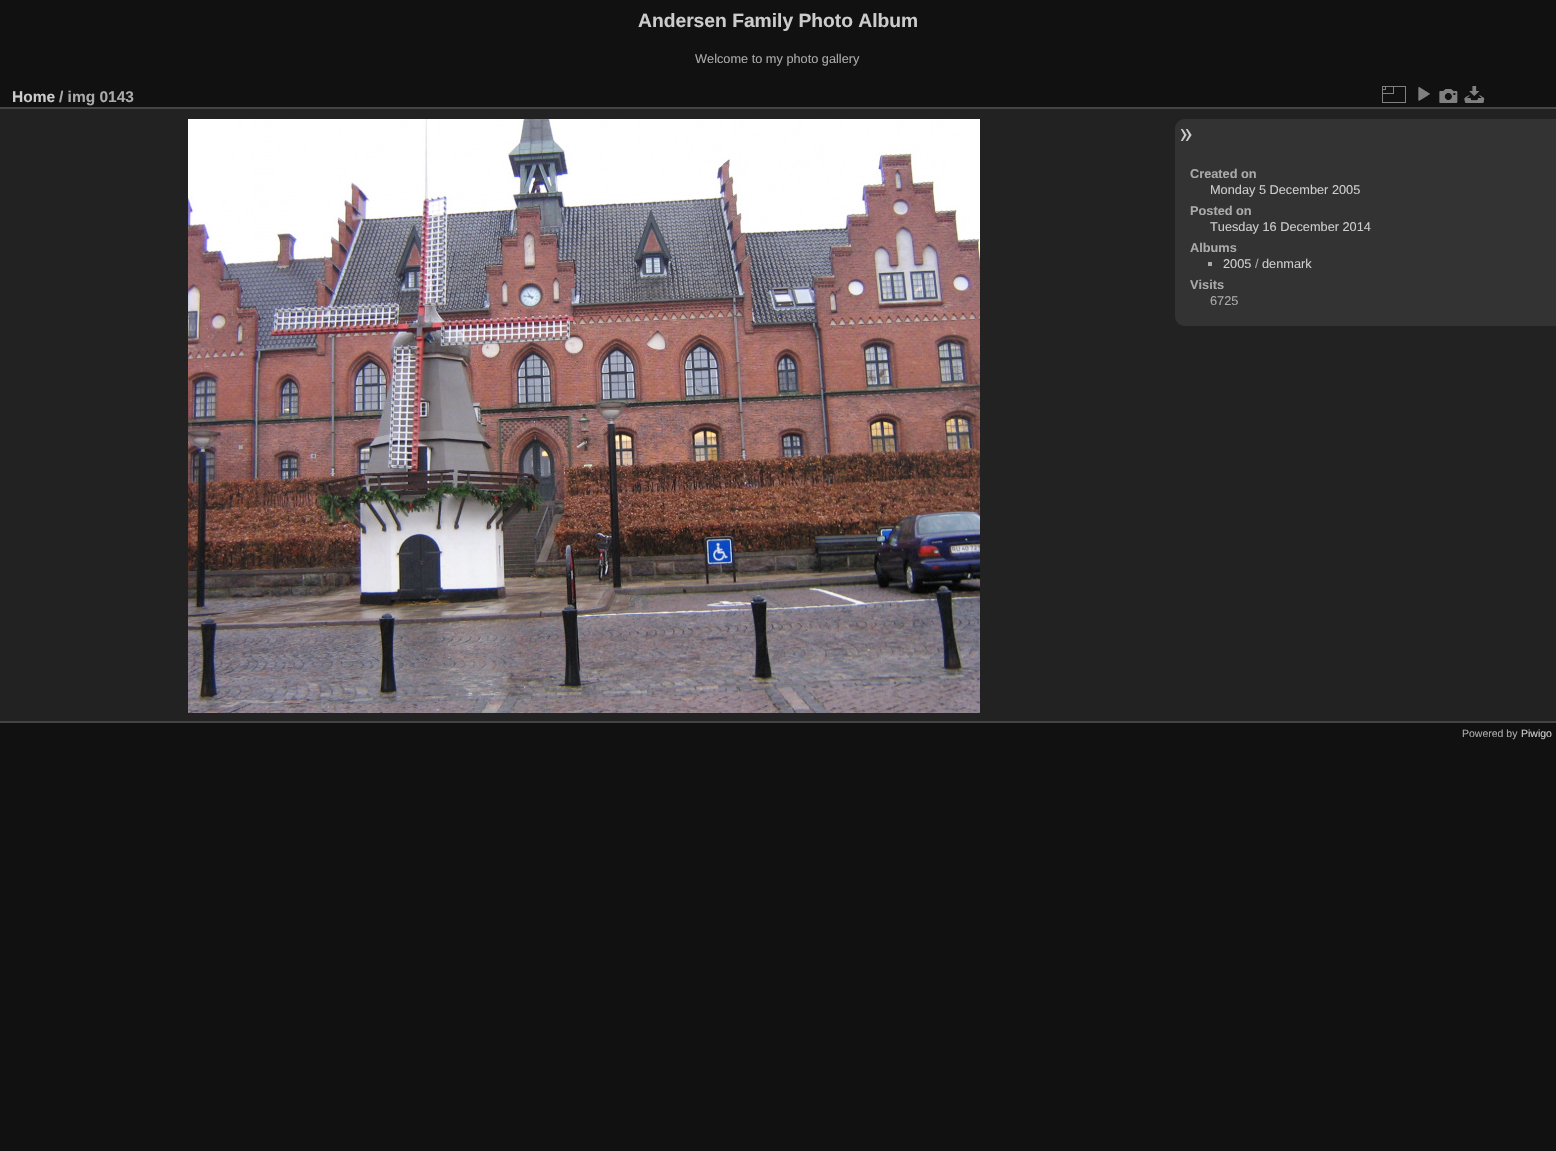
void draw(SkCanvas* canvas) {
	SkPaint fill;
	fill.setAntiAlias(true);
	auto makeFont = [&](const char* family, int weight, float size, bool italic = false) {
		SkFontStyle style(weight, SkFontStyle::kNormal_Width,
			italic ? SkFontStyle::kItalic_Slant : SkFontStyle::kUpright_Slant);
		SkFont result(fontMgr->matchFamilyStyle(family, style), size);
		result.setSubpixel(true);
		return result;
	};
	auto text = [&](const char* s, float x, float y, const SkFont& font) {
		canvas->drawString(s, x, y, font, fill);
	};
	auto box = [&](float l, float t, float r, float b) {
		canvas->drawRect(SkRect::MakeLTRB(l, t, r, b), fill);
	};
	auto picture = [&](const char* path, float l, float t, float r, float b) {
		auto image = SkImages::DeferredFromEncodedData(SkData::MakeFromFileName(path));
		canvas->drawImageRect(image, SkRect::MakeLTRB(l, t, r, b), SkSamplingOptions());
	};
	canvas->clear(0xFF111111);
	fill.setColor(0xFF222222);
	box(0, 109, 1556, 721);
	fill.setColor(0xFF444444);
	box(0, 721, 1556, 723);
	box(0, 107, 1556, 109);
	picture("image0.png", 1382, 86, 1406, 103);
	picture("image1.png", 1418, 87, 1430, 101);
	picture("image2.png", 1439, 89, 1458, 103);
	picture("image3.png", 1464, 86, 1485, 103);
	picture("image4.png", 188, 119, 980, 713);
	fill.setColor(0xFF333333);
	canvas->drawPath(SkPathBuilder().moveTo(1185, 119).lineTo(1556, 119).lineTo(1556, 326).lineTo(1185, 326).cubicTo(1179.5f, 326, 1175, 321.5f, 1175, 316).lineTo(1175, 129).cubicTo(1175, 123.5f, 1179.5f, 119, 1185, 119).close().detach(), fill);
	picture("image5.png", 1180, 129, 1192, 141);
	fill.setColor(0xFFAAAAAA);
	box(1208, 262, 1212, 266);
	auto font1 = makeFont("Liberation Sans", 700, 19.25f);
	fill.setColor(0xFFCCCCCC);
	text("Andersen Family Photo Album", 638, 27, font1);
	auto font2 = makeFont("Liberation Sans", 400, 12.75f);
	fill.setColor(0xFFAAAAAA);
	text("Welcome to my photo gallery", 695, 63, font2);
	auto font3 = makeFont("Liberation Sans", 700, 15.5f);
	fill.setColor(0xFFCCCCCC);
	text("Home", 12, 102, font3);
	fill.setColor(0xFFAAAAAA);
	text("/ img 0143", 59, 102, font3);
	auto font4 = makeFont("Liberation Sans", 700, 12.75f);
	text("Created on", 1190, 178, font4);
	fill.setColor(0xFFCCCCCC);
	text("Monday 5 December 2005", 1210, 194, font2);
	fill.setColor(0xFFAAAAAA);
	text("Posted on", 1190, 215, font4);
	fill.setColor(0xFFCCCCCC);
	text("Tuesday 16 December 2014", 1210, 231, font2);
	fill.setColor(0xFFAAAAAA);
	text("Albums", 1190, 252, font4);
	fill.setColor(0xFFCCCCCC);
	text("2005", 1223, 268, font2);
	fill.setColor(0xFFAAAAAA);
	text("/", 1255, 268, font2);
	fill.setColor(0xFFCCCCCC);
	text("denmark", 1262, 268, font2);
	fill.setColor(0xFFAAAAAA);
	text("Visits", 1190, 289, font4);
	text("6725", 1210, 305, font2);
	auto font5 = makeFont("Liberation Sans", 400, 10.5f);
	text("Powered by", 1462, 737, font5);
	fill.setColor(0xFFCCCCCC);
	text("Piwigo", 1521, 737, font5);
}
